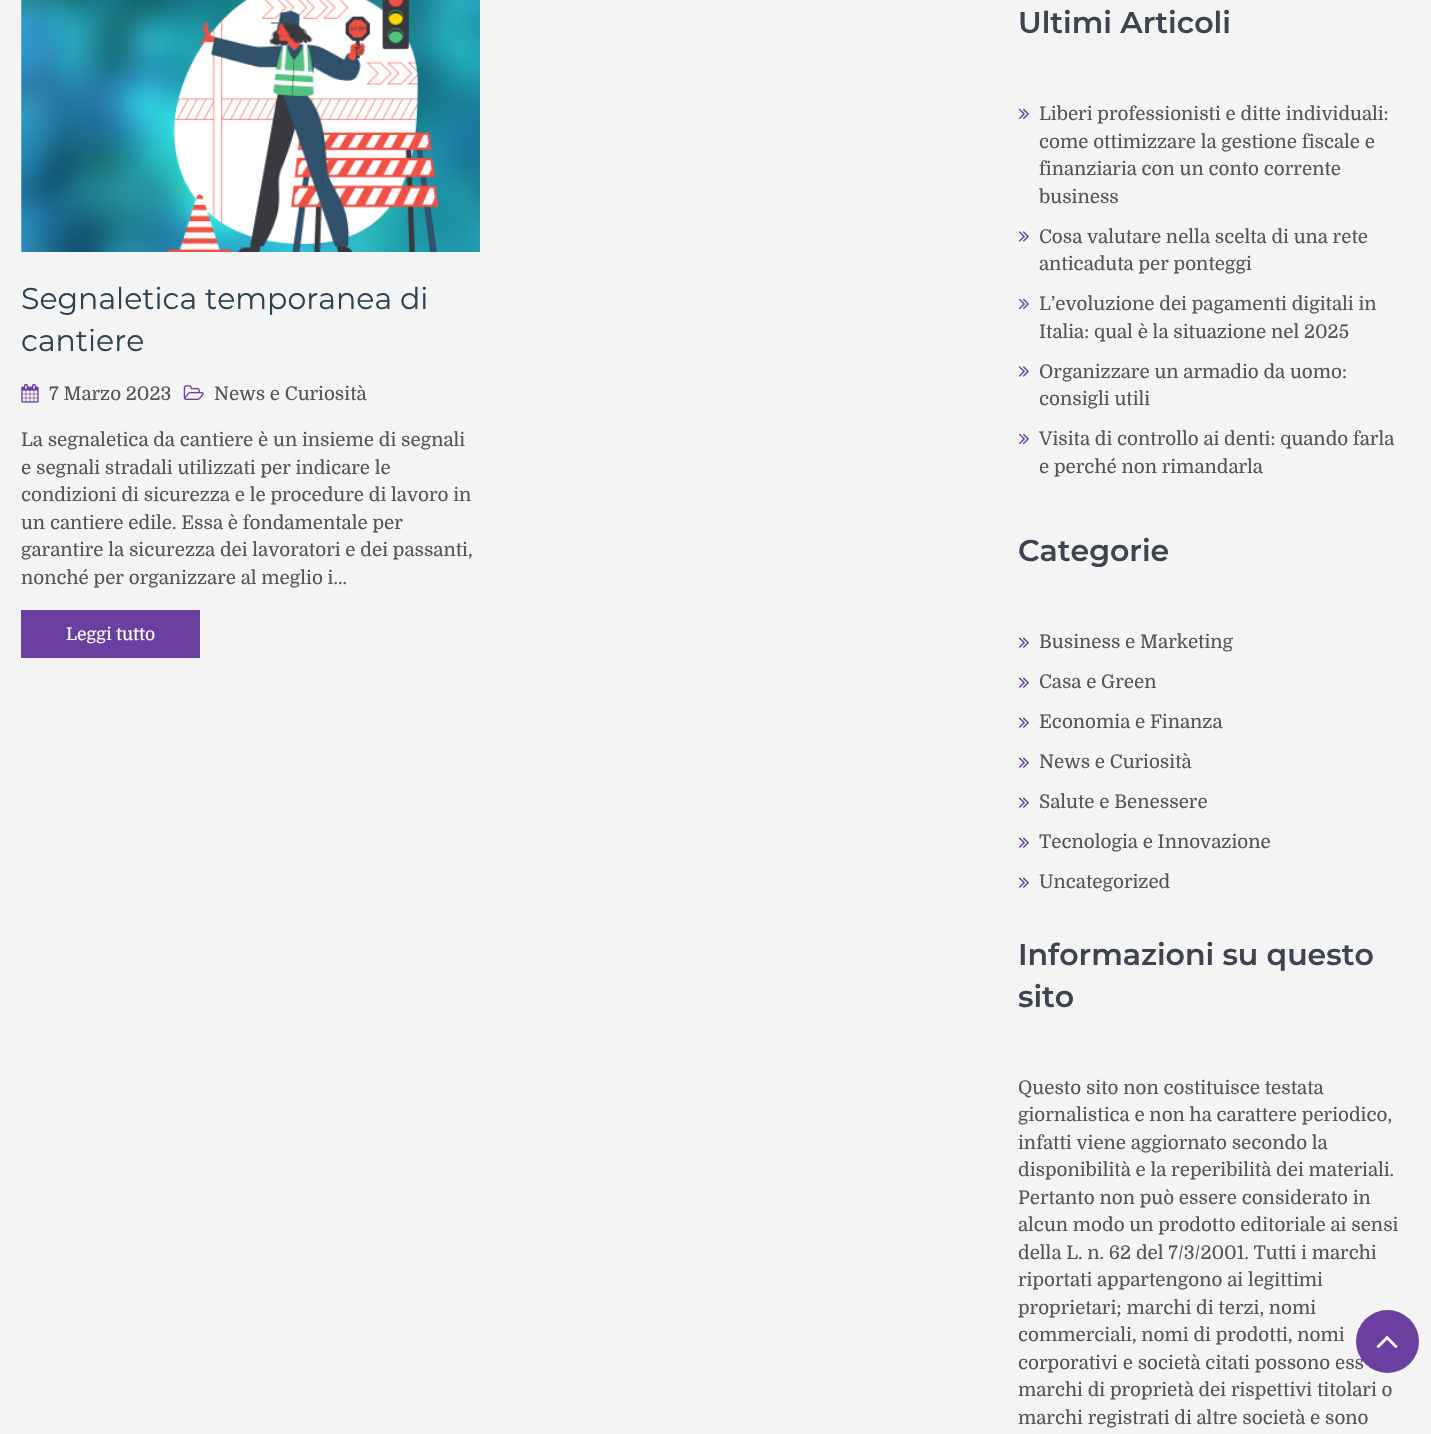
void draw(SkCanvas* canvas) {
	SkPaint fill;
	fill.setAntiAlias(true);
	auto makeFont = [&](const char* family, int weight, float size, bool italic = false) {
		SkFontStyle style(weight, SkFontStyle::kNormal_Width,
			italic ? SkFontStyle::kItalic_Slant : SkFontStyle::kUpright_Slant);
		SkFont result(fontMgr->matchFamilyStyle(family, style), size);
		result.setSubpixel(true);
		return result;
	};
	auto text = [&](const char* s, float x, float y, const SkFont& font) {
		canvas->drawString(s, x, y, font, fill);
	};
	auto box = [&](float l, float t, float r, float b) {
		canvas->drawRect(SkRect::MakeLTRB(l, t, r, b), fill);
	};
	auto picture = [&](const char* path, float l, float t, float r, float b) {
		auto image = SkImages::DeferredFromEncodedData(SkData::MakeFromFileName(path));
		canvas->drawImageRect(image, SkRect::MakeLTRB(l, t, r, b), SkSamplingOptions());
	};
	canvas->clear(0xFFF4F4F4);
	picture("image0.png", 21, 0, 480, 252);
	picture("image1.png", 21, 383, 39, 403);
	picture("image2.png", 183, 385, 204, 400);
	fill.setColor(0xFF6B3FA0);
	box(21, 610, 200, 658);
	picture("image3.png", 1018, 108, 1029, 120);
	picture("image4.png", 1018, 231, 1029, 242);
	picture("image3.png", 1018, 298, 1029, 310);
	picture("image4.png", 1018, 366, 1029, 377);
	picture("image3.png", 1018, 433, 1029, 445);
	picture("image5.png", 1018, 637, 1029, 648);
	picture("image5.png", 1018, 677, 1029, 688);
	picture("image5.png", 1018, 717, 1029, 728);
	picture("image5.png", 1018, 757, 1029, 768);
	picture("image5.png", 1018, 797, 1029, 808);
	picture("image5.png", 1018, 837, 1029, 848);
	picture("image5.png", 1018, 877, 1029, 888);
	auto font1 = makeFont("Montserrat", 400, 30);
	fill.setColor(0xFF2D4351);
	text("Segnaletica temporanea di", 21, 309, font1);
	text("cantiere", 21, 351, font1);
	auto font2 = makeFont("Domine", 400, 18.75f);
	fill.setColor(0xFF555555);
	text("7 Marzo 2023", 49, 400, font2);
	text("News e Curiosità", 214, 400, font2);
	text("La segnaletica da cantiere è un insieme di segnali", 21, 446, font2);
	text("e segnali stradali utilizzati per indicare le", 21, 474, font2);
	text("condizioni di sicurezza e le procedure di lavoro in", 21, 501, font2);
	text("un cantiere edile. Essa è fondamentale per", 21, 529, font2);
	text("garantire la sicurezza dei lavoratori e dei passanti,", 21, 556, font2);
	text("nonché per organizzare al meglio i…", 21, 584, font2);
	auto font3 = makeFont("Domine", 400, 17.5f);
	fill.setColor(0xFFFFFFFF);
	text("Leggi tutto", 66, 640, font3);
	auto font4 = makeFont("Montserrat", 600, 30);
	fill.setColor(0xFF3D4351);
	text("Ultimi Articoli", 1018, 33, font4);
	fill.setColor(0xFF555555);
	text("Liberi professionisti e ditte individuali:", 1039, 120, font2);
	text("come ottimizzare la gestione fiscale e", 1039, 148, font2);
	text("finanziaria con un conto corrente", 1039, 175, font2);
	text("business", 1039, 203, font2);
	text("Cosa valutare nella scelta di una rete", 1039, 243, font2);
	text("anticaduta per ponteggi", 1039, 270, font2);
	text("L’evoluzione dei pagamenti digitali in", 1039, 310, font2);
	text("Italia: qual è la situazione nel 2025", 1039, 338, font2);
	text("Organizzare un armadio da uomo:", 1039, 378, font2);
	text("consigli utili", 1039, 405, font2);
	text("Visita di controllo ai denti: quando farla", 1039, 445, font2);
	text("e perché non rimandarla", 1039, 473, font2);
	fill.setColor(0xFF3D4351);
	text("Categorie", 1018, 561, font4);
	fill.setColor(0xFF555555);
	text("Business e Marketing", 1039, 648, font2);
	text("Casa e Green", 1039, 688, font2);
	text("Economia e Finanza", 1039, 728, font2);
	text("News e Curiosità", 1039, 768, font2);
	text("Salute e Benessere", 1039, 808, font2);
	text("Tecnologia e Innovazione", 1039, 848, font2);
	text("Uncategorized", 1039, 888, font2);
	fill.setColor(0xFF3D4351);
	text("Informazioni su questo", 1018, 965, font4);
	text("sito", 1018, 1007, font4);
	fill.setColor(0xFF555555);
	text("Questo sito non costituisce testata", 1018, 1094, font2);
	text("giornalistica e non ha carattere periodico,", 1018, 1121, font2);
	text("infatti viene aggiornato secondo la", 1018, 1149, font2);
	text("disponibilità e la reperibilità dei materiali.", 1018, 1176, font2);
	text("Pertanto non può essere considerato in", 1018, 1204, font2);
	text("alcun modo un prodotto editoriale ai sensi", 1018, 1231, font2);
	text("della L. n. 62 del 7/3/2001. Tutti i marchi", 1018, 1259, font2);
	text("riportati appartengono ai legittimi", 1018, 1286, font2);
	text("proprietari; marchi di terzi, nomi", 1018, 1314, font2);
	text("commerciali, nomi di prodotti, nomi", 1018, 1341, font2);
	text("corporativi e società citati possono ess", 1018, 1369, font2);
	text("marchi di proprietà dei rispettivi titolari o", 1018, 1396, font2);
	text("marchi registrati di altre società e sono", 1018, 1424, font2);
	fill.setColor(0xFF6B3FA0);
	canvas->drawCircle(1387.5f, 1341.5f, 31.5f, fill);
	picture("image6.png", 1376, 1336, 1398, 1349);
}
